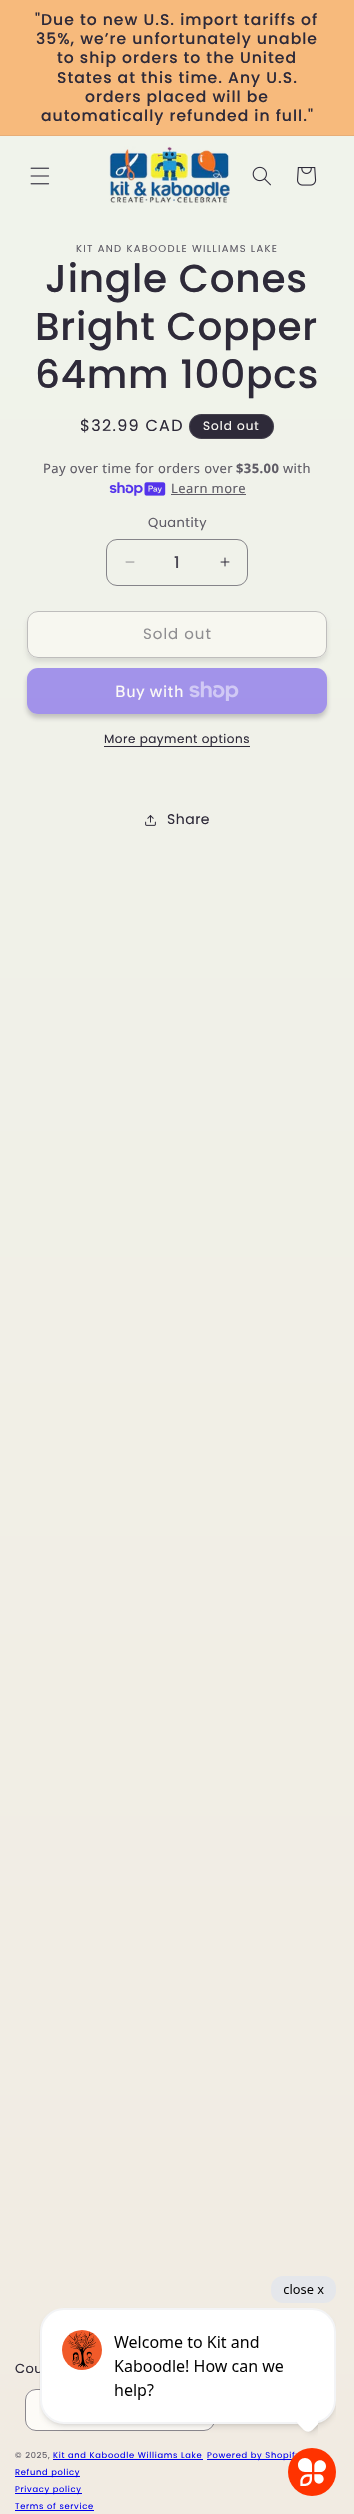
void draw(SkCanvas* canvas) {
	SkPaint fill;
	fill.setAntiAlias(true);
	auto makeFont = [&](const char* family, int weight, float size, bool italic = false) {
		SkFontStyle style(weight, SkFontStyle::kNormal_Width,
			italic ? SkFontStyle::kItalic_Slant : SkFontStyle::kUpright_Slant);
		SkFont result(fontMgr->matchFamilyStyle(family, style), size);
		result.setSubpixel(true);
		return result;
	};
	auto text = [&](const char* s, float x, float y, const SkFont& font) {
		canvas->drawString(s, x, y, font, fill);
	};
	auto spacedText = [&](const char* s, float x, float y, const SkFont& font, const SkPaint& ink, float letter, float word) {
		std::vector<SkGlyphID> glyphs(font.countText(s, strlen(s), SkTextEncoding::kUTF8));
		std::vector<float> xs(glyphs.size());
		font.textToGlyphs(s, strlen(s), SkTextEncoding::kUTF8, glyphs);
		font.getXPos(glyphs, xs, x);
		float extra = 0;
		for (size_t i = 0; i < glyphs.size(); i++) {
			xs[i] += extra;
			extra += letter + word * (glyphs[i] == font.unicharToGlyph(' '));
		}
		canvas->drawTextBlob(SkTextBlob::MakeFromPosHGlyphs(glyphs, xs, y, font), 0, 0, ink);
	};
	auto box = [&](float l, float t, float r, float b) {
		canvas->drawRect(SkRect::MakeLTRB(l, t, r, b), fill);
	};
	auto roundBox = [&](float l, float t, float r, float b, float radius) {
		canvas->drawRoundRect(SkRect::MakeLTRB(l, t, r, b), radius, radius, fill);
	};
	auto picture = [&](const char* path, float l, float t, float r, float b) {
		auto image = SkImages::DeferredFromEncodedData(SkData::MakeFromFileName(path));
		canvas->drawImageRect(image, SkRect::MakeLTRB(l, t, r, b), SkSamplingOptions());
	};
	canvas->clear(0xFFFFFFFF);
	{
		const SkColor colors[] = {0xFFF0F4EC, 0xFFF1EBE2};
		const float stops[] = {0, 1};
		const SkPoint ends[] = {{177, 0}, {177, 2514}};
		fill.setShader(SkGradientShader::MakeLinear(ends, colors, stops, 2, SkTileMode::kClamp));
		fill.setAlpha(255);
	}
	box(0, 136, 354, 2514);
	fill.setShader(nullptr);
	fill.setColor(0xFFF7BA7C);
	box(0, 0, 354, 135);
	fill.setColor(0xFFE7AE77);
	box(0, 135, 354, 136);
	picture("image0.png", 30, 167, 50, 185);
	picture("image1.png", 109, 146, 230, 203);
	picture("image2.png", 252, 166, 271, 186);
	picture("image3.png", 297, 167, 317, 186);
	fill.setColor(0xFF2E2A39);
	roundBox(189, 414, 274, 439, 12.5f);
	fill.setStyle(SkPaint::kStroke_Style);
	fill.setStrokeWidth(1);
	fill.setColor(0x1AFDFBF7);
	canvas->drawRoundRect(SkRect::MakeLTRB(189.5f, 414.5f, 273.5f, 438.5f), 12, 12, fill);
	picture("image4.png", 109, 482, 166, 496);
	fill.setStyle(SkPaint::kFill_Style);
	fill.setColor(0xFF5F5C65);
	box(171, 494, 246, 495);
	picture("image5.png", 125, 561, 135, 563);
	picture("image6.png", 220, 557, 230, 567);
	fill.setStyle(SkPaint::kStroke_Style);
	fill.setColor(0xFF858489);
	canvas->drawRoundRect(SkRect::MakeLTRB(106.5f, 539.5f, 247.5f, 585.5f), 10.5f, 10.5f, fill);
	fill.setStyle(SkPaint::kFill_Style);
	fill.setColor(0xFFF7F7F0);
	roundBox(27, 611, 327, 658, 11);
	canvas->save();
	canvas->clipPath(SkPathBuilder(SkPathFillType::kEvenOdd).moveTo(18, 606).lineTo(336, 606).lineTo(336, 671).lineTo(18, 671).close().moveTo(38, 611).lineTo(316, 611).cubicTo(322, 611, 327, 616, 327, 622).lineTo(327, 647).cubicTo(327, 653, 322, 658, 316, 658).lineTo(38, 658).cubicTo(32, 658, 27, 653, 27, 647).lineTo(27, 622).cubicTo(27, 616, 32, 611, 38, 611).close().detach(), true);
	fill.setColor(0x408F8E91);
	fill.setMaskFilter(SkMaskFilter::MakeBlur(kNormal_SkBlurStyle, 2.5f));
	canvas->drawRoundRect(SkRect::MakeLTRB(27, 615, 327, 662), 11, 11, fill);
	fill.setMaskFilter(nullptr);
	canvas->restore();
	fill.setStyle(SkPaint::kStroke_Style);
	fill.setColor(0xFFF7F7F0);
	canvas->drawRoundRect(SkRect::MakeLTRB(27.5f, 611.5f, 326.5f, 657.5f), 10.5f, 10.5f, fill);
	fill.setColor(0x8C8F8E91);
	canvas->drawRoundRect(SkRect::MakeLTRB(27.5f, 611.5f, 326.5f, 657.5f), 10.5f, 10.5f, fill);
	canvas->save();
	canvas->clipPath(SkPathBuilder(SkPathFillType::kEvenOdd).moveTo(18, 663).lineTo(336, 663).lineTo(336, 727).lineTo(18, 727).close().moveTo(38, 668).lineTo(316, 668).cubicTo(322, 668, 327, 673, 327, 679).lineTo(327, 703).cubicTo(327, 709, 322, 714, 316, 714).lineTo(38, 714).cubicTo(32, 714, 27, 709, 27, 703).lineTo(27, 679).cubicTo(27, 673, 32, 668, 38, 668).close().detach(), true);
	fill.setStyle(SkPaint::kFill_Style);
	fill.setColor(0x402E2A39);
	fill.setMaskFilter(SkMaskFilter::MakeBlur(kNormal_SkBlurStyle, 2.5f));
	canvas->drawRoundRect(SkRect::MakeLTRB(27, 672, 327, 718), 11, 11, fill);
	fill.setMaskFilter(nullptr);
	canvas->restore();
	fill.setColor(0x805433EB);
	roundBox(27, 668, 327, 714, 11);
	picture("image7.png", 189, 681, 239, 701);
	fill.setColor(0xFF2E2A39);
	box(104, 746, 250, 747);
	picture("image8.png", 145, 815, 156, 826);
	fill.setColor(0xFFFDFBF7);
	roundBox(25, 2389, 215, 2431, 11);
	fill.setStyle(SkPaint::kStroke_Style);
	fill.setColor(0x8C2E2A39);
	canvas->drawRoundRect(SkRect::MakeLTRB(25.5f, 2389.5f, 214.5f, 2430.5f), 10.5f, 10.5f, fill);
	fill.setStyle(SkPaint::kFill_Style);
	fill.setColor(0xFF0000EE);
	box(53, 2459, 203, 2460);
	box(207, 2459, 292, 2460);
	box(15, 2476, 80, 2477);
	box(15, 2493, 82, 2494);
	box(15, 2510, 94, 2511);
	auto font1 = makeFont("Poppins", 500, 15.6f);
	fill.setColor(0xFF2E2A39);
	spacedText("\"Due to new U.S. import tariffs of", 35, 25, font1, fill, 1, 0);
	spacedText("35%, we’re unfortunately unable", 36, 44, font1, fill, 1, 0);
	spacedText("to ship orders to the United", 57, 63, font1, fill, 1, 0);
	spacedText("States at this time. Any U.S.", 57, 83, font1, fill, 1, 0);
	spacedText("orders placed will be", 85, 102, font1, fill, 1, 0);
	spacedText("automatically refunded in full.\"", 41, 121, font1, fill, 1, 0);
	auto font2 = makeFont("Poppins", 400, 10);
	fill.setColor(0xFF5F5C66);
	spacedText("KIT AND KABOODLE WILLIAMS LAKE", 76, 252, font2, fill, 1.3f, 0);
	auto font3 = makeFont("Poppins", 500, 39);
	fill.setColor(0xFF2E2A39);
	spacedText("Jingle Cones", 45, 292, font3, fill, 0.75f, 0);
	spacedText("Bright Copper", 35, 340, font3, fill, 0.75f, 0);
	spacedText("64mm 100pcs", 35, 388, font3, fill, 0.75f, 0);
	auto font4 = makeFont("Poppins", 400, 16);
	spacedText("$32.99 CAD", 80, 431, font4, fill, 1.3f, 0);
	auto font5 = makeFont("Poppins", 400, 12);
	fill.setColor(0xFFFDFBF7);
	spacedText("Sold out", 203, 430, font5, fill, 1, 0);
	auto font6 = makeFont("Noto Sans", 400, 13);
	fill.setColor(0xFF5F5C66);
	spacedText("Pay over time for orders over", 43, 473, font6, fill, 0.4f, 0);
	auto font7 = makeFont("Noto Sans", 700, 13);
	spacedText("$35.00", 236, 473, font7, fill, 0.4f, 0);
	spacedText("with", 283, 473, font6, fill, 0.4f, 0);
	spacedText("Learn more", 171, 493, font6, fill, 0.4f, 0);
	auto font8 = makeFont("Poppins", 400, 13);
	spacedText("Quantity", 148, 527, font8, fill, 0.4f, 0);
	auto font9 = makeFont("Poppins", 500, 16);
	fill.setColor(0xFF4B4854);
	text("1", 174, 568, font9);
	auto font10 = makeFont("Poppins", 400, 15);
	fill.setColor(0xFF8F8E91);
	spacedText("Sold out", 143, 639, font10, fill, 1, 0);
	auto font11 = makeFont("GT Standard", 400, 16);
	fill.setColor(0xFFFDFBF7);
	spacedText("Buy with", 115, 697, font11, fill, 0.5f, 0);
	fill.setColor(0xFF2E2A39);
	spacedText("More payment options", 104, 743, font5, fill, 0.5f, 0);
	auto font12 = makeFont("Poppins", 400, 14);
	spacedText("Share", 167, 824, font12, fill, 0.5f, 0);
	spacedText("Cou", 15, 2373, font8, fill, 0.4f, 0);
	auto font13 = makeFont("Poppins", 400, 8.3f);
	fill.setColor(0xFF5F5C66);
	spacedText("© 2025,", 15, 2458, font13, fill, 0.7f, 0);
	fill.setColor(0xFF0000EE);
	spacedText("Kit and Kaboodle Williams Lake", 53, 2458, font13, fill, 0.7f, 0);
	spacedText("Powered by Shopify", 207, 2458, font13, fill, 0.7f, 0);
	spacedText("Refund policy", 15, 2475, font13, fill, 0.7f, 0);
	spacedText("Privacy policy", 15, 2492, font13, fill, 0.7f, 0);
	picture("image9.png", 39, 2276, 336, 2496);
	spacedText("Terms of service", 15, 2509, font13, fill, 0.7f, 0);
}
